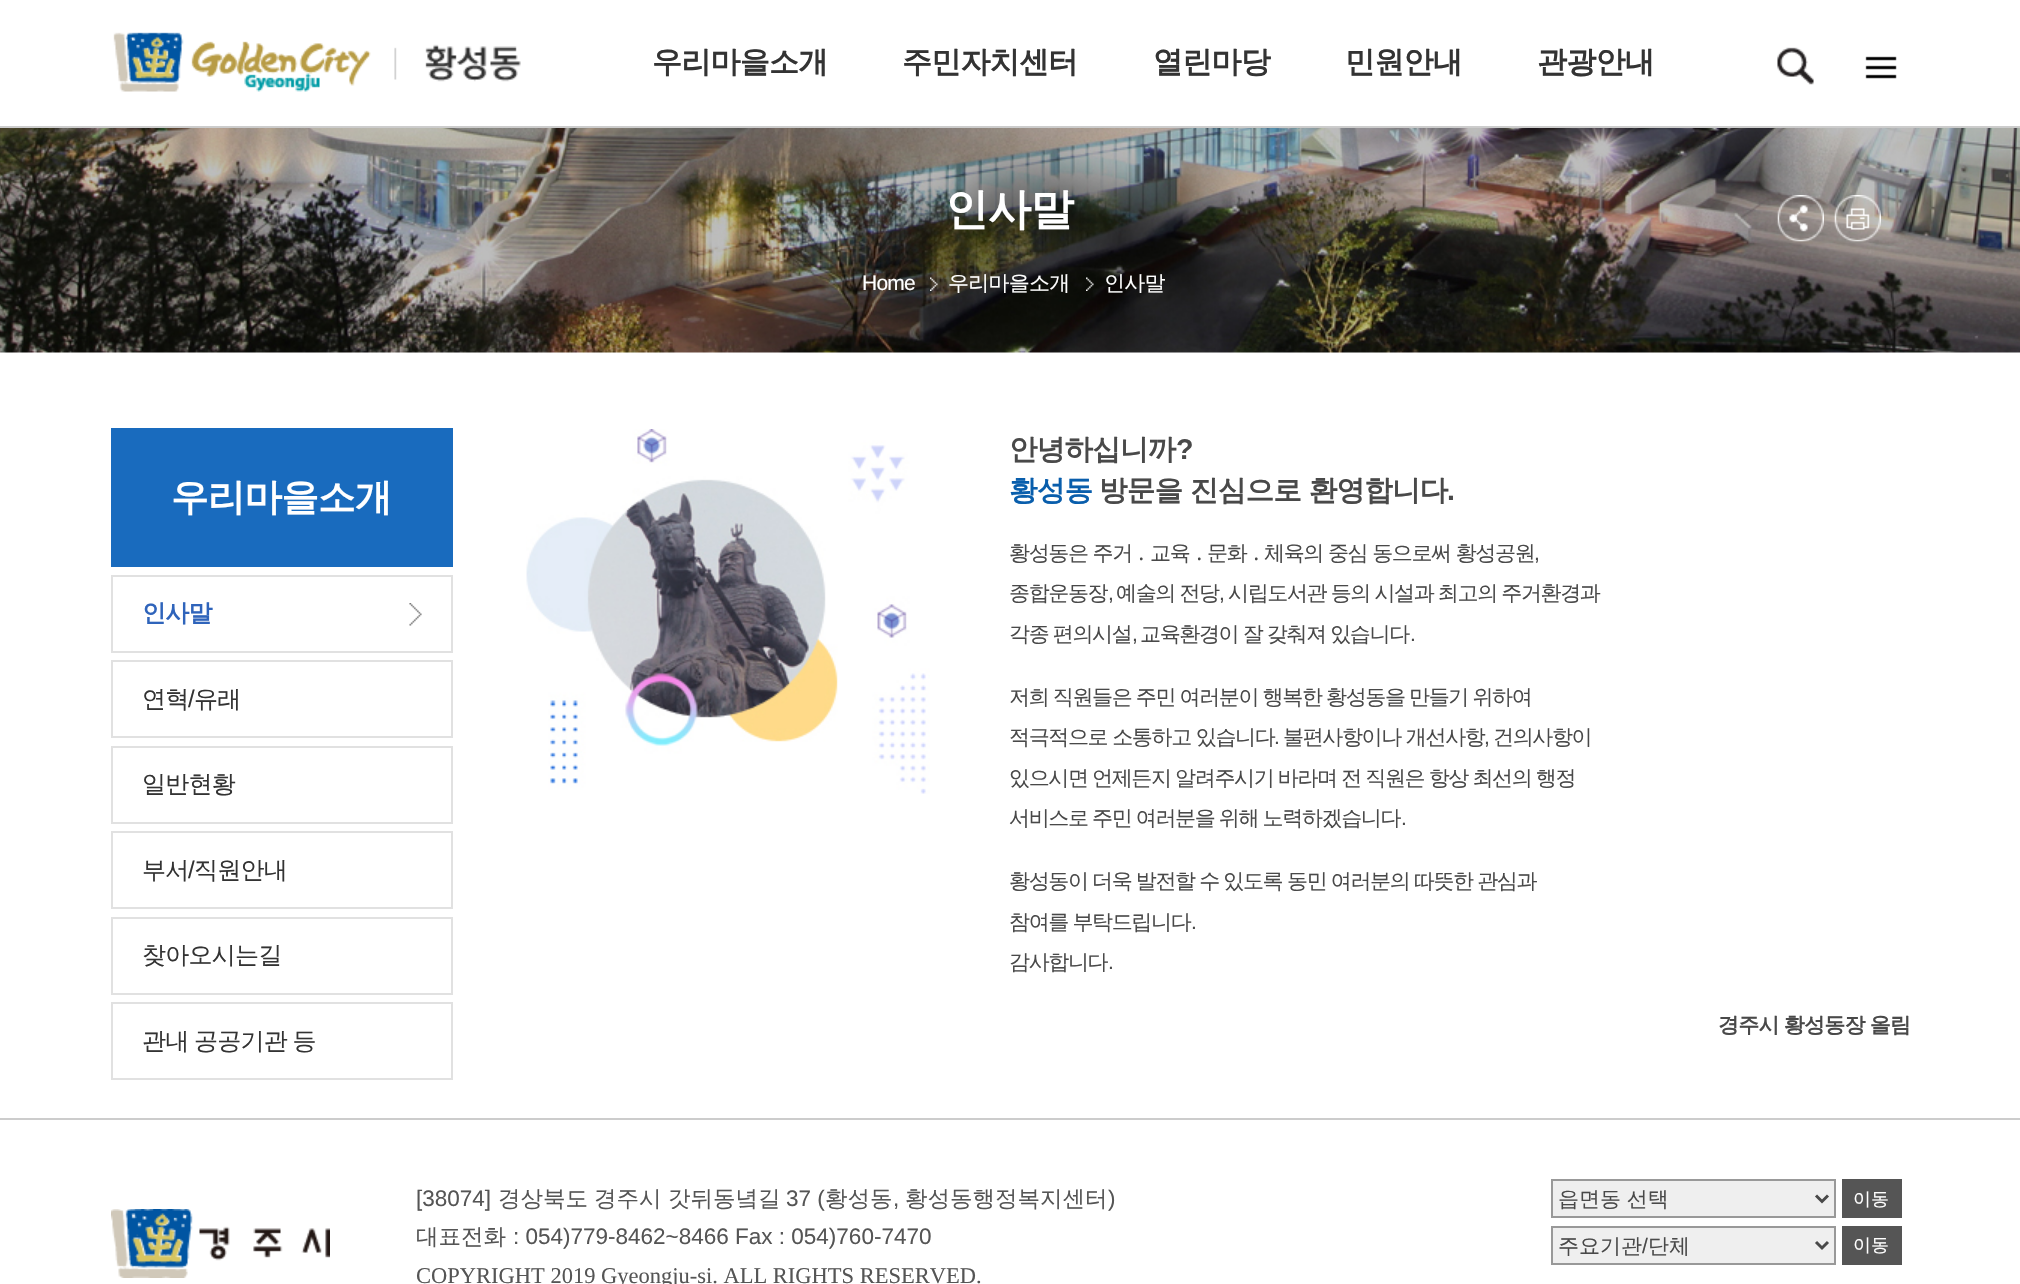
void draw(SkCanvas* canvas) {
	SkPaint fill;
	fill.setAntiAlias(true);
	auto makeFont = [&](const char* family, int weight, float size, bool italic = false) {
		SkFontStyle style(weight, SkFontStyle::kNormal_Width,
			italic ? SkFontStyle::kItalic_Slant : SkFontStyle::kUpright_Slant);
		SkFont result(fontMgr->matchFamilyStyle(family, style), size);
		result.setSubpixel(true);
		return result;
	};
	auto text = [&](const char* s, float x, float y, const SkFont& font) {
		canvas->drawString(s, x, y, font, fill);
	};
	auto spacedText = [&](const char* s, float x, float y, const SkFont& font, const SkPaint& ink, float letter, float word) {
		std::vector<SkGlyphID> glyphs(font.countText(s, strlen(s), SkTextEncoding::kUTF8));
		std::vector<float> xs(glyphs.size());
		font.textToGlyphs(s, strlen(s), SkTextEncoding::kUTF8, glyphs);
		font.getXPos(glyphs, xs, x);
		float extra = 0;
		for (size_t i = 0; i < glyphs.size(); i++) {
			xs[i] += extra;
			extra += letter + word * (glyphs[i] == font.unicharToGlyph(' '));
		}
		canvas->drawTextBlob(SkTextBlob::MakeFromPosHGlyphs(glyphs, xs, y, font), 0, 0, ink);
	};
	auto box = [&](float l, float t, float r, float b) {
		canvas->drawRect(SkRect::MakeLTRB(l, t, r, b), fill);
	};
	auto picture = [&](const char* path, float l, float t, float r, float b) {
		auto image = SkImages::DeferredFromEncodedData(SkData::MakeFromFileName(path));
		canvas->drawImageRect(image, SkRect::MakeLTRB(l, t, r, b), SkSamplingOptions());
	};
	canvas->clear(0xFFFFFFFF);
	picture("image0.png", 113, 32, 521, 92);
	picture("image1.png", 1777, 47, 1814, 85);
	picture("image2.png", 1865, 56, 1897, 79);
	picture("image3.png", 0, 128, 2020, 353);
	fill.setColor(0xFFCCCCCC);
	box(0, 126, 2020, 128);
	fill.setColor(0xFF196BBE);
	box(111, 428, 453, 567);
	fill.setStyle(SkPaint::kStroke_Style);
	fill.setStrokeWidth(2);
	fill.setColor(0xFFE1E1E1);
	canvas->drawRect(SkRect::MakeLTRB(112, 576, 452, 652), fill);
	picture("image4.png", 409, 603, 422, 626);
	canvas->drawRect(SkRect::MakeLTRB(112, 661, 452, 737), fill);
	canvas->drawRect(SkRect::MakeLTRB(112, 747, 452, 823), fill);
	canvas->drawRect(SkRect::MakeLTRB(112, 832, 452, 908), fill);
	canvas->drawRect(SkRect::MakeLTRB(112, 918, 452, 994), fill);
	canvas->drawRect(SkRect::MakeLTRB(112, 1003, 452, 1079), fill);
	picture("image5.png", 1777, 195, 1824, 242);
	picture("image6.png", 1834, 195, 1881, 242);
	picture("image7.png", 930, 277, 938, 291);
	picture("image8.png", 1086, 277, 1094, 291);
	picture("image9.png", 526, 429, 930, 794);
	fill.setStyle(SkPaint::kFill_Style);
	fill.setColor(0xFFCCCCCC);
	box(0, 1118, 2020, 1120);
	picture("image10.png", 111, 1209, 330, 1278);
	fill.setColor(0xFFEFEFEF);
	canvas->drawRect(SkRect::MakeLTRB(1552, 1180, 1835, 1217), fill);
	fill.setStyle(SkPaint::kStroke_Style);
	fill.setColor(0xFF999999);
	canvas->drawRect(SkRect::MakeLTRB(1552, 1180, 1835, 1217), fill);
	fill.setStrokeWidth(3);
	fill.setColor(0xFF494949);
	canvas->drawPath(SkPathBuilder().moveTo(1816, 1195.5f).lineTo(1822, 1201.5f).lineTo(1828, 1195.5f).detach(), fill);
	fill.setStyle(SkPaint::kFill_Style);
	fill.setColor(0xFF555555);
	box(1842, 1179, 1902, 1218);
	fill.setColor(0xFFEFEFEF);
	canvas->drawRect(SkRect::MakeLTRB(1552, 1227, 1835, 1264), fill);
	fill.setStyle(SkPaint::kStroke_Style);
	fill.setStrokeWidth(2);
	fill.setColor(0xFF999999);
	canvas->drawRect(SkRect::MakeLTRB(1552, 1227, 1835, 1264), fill);
	fill.setStrokeWidth(3);
	fill.setColor(0xFF494949);
	canvas->drawPath(SkPathBuilder().moveTo(1816, 1242).lineTo(1822, 1248).lineTo(1828, 1242).detach(), fill);
	fill.setStyle(SkPaint::kFill_Style);
	fill.setColor(0xFF555555);
	box(1842, 1226, 1902, 1265);
	auto font1 = makeFont("WenQuanYi Zen Hei", 700, 30);
	fill.setColor(0xFF333333);
	spacedText("우리마을소개", 652, 72, font1, fill, -0.75f, 0);
	spacedText("주민자치센터", 902, 72, font1, fill, -0.75f, 0);
	spacedText("열린마당", 1153, 72, font1, fill, -0.75f, 0);
	spacedText("민원안내", 1345, 72, font1, fill, -0.75f, 0);
	spacedText("관광안내", 1537, 72, font1, fill, -0.75f, 0);
	auto font2 = makeFont("WenQuanYi Zen Hei", 700, 37.5f);
	fill.setColor(0xFFFFFFFF);
	spacedText("우리마을소개", 171, 510, font2, fill, -0.75f, 0);
	auto font3 = makeFont("WenQuanYi Zen Hei", 700, 24);
	fill.setColor(0xFF2F64BB);
	spacedText("인사말", 142, 621, font3, fill, -0.75f, 0);
	auto font4 = makeFont("WenQuanYi Zen Hei", 500, 24);
	fill.setColor(0xFF333333);
	spacedText("연혁", 142, 707, font4, fill, -0.75f, 0);
	auto font5 = makeFont("Liberation Sans", 400, 24);
	spacedText("/", 188, 707, font5, fill, -0.75f, 0);
	spacedText("유래", 194, 707, font4, fill, -0.75f, 0);
	spacedText("일반현황", 142, 792, font4, fill, -0.75f, 0);
	spacedText("부서", 142, 878, font4, fill, -0.75f, 0);
	spacedText("/", 188, 878, font5, fill, -0.75f, 0);
	spacedText("직원안내", 194, 878, font4, fill, -0.75f, 0);
	spacedText("찾아오시는길", 142, 963, font4, fill, -0.75f, 0);
	spacedText("관내 공공기관 등", 142, 1049, font4, fill, -0.75f, -1);
	auto font6 = makeFont("WenQuanYi Zen Hei", 700, 43.5f);
	fill.setColor(0xFFFFFFFF);
	spacedText("인사말", 945, 224, font6, fill, -0.75f, 0);
	auto font7 = makeFont("Liberation Sans", 400, 21);
	spacedText("Home", 862, 290, font7, fill, -0.75f, 0);
	auto font8 = makeFont("WenQuanYi Zen Hei", 500, 21);
	spacedText("우리마을소개", 948, 290, font8, fill, -0.75f, 0);
	spacedText("인사말", 1104, 290, font8, fill, -0.75f, 0);
	auto font9 = makeFont("WenQuanYi Zen Hei", 700, 28.5f);
	fill.setColor(0xFF494949);
	spacedText("안녕하십니까", 1009, 459, font9, fill, -0.75f, 0);
	auto font10 = makeFont("Liberation Sans", 700, 28.5f);
	spacedText("?", 1176, 459, font10, fill, -0.75f, 0);
	fill.setColor(0xFF095EAC);
	spacedText("황성동", 1009, 500, font9, fill, -0.75f, 0);
	fill.setColor(0xFF494949);
	spacedText("방문을 진심으로 환영합니다", 1099, 500, font9, fill, -0.75f, 0);
	spacedText(".", 1447, 500, font10, fill, -0.75f, 0);
	spacedText("황성동은 주거", 1009, 560, font8, fill, -1.35f, 0);
	auto font11 = makeFont("Noto Sans", 400, 21);
	spacedText("․", 1136, 560, font11, fill, -1.35f, 0);
	spacedText("교육", 1150, 560, font8, fill, -1.35f, 0);
	spacedText("․", 1194, 560, font11, fill, -1.35f, 0);
	spacedText("문화", 1207, 560, font8, fill, -1.35f, 0);
	spacedText("․", 1251, 560, font11, fill, -1.35f, 0);
	spacedText("체육의 중심 동으로써 황성공원", 1264, 560, font8, fill, -1.35f, 0);
	spacedText(",", 1534, 560, font7, fill, -1.35f, 0);
	spacedText("종합운동장", 1009, 600, font8, fill, -1.35f, 0);
	spacedText(",", 1108, 600, font7, fill, -1.35f, 0);
	spacedText("예술의 전당", 1116, 600, font8, fill, -1.35f, -0.5f);
	spacedText(",", 1219, 600, font7, fill, -1.35f, 0);
	spacedText("시립도서관 등의 시설과 최고의 주거환경과", 1228, 600, font8, fill, -1.35f, -0.5f);
	spacedText("각종 편의시설", 1009, 641, font8, fill, -1.35f, -0.5f);
	spacedText(",", 1132, 641, font7, fill, -1.35f, 0);
	spacedText("교육환경이 잘 갖춰져 있습니다", 1140, 641, font8, fill, -1.35f, -0.5f);
	spacedText(".", 1410, 641, font7, fill, -1.35f, 0);
	spacedText("저희 직원들은 주민 여러분이 행복한 황성동을 만들기 위하여", 1009, 704, font8, fill, -1.35f, -0.5f);
	spacedText("적극적으로 소통하고 있습니다", 1009, 744, font8, fill, -1.35f, 0);
	spacedText(".", 1274, 744, font7, fill, -1.35f, 0);
	spacedText("불편사항이나 개선사항", 1283, 744, font8, fill, -1.35f, 0);
	spacedText(",", 1484, 744, font7, fill, -1.35f, 0);
	spacedText("건의사항이", 1493, 744, font8, fill, -1.35f, 0);
	spacedText("있으시면 언제든지 알려주시기 바라며 전 직원은 항상 최선의 행정", 1009, 785, font8, fill, -1.35f, -0.5f);
	spacedText("서비스로 주민 여러분을 위해 노력하겠습니다", 1009, 825, font8, fill, -1.35f, -0.5f);
	spacedText(".", 1401, 825, font7, fill, -1.35f, 0);
	spacedText("황성동이 더욱 발전할 수 있도록", 1009, 888, font8, fill, -1.35f, -0.5f);
	spacedText("동민 여러분의 따뜻한 관심과", 1287, 888, font8, fill, -1.35f, -0.5f);
	spacedText("참여를 부탁드립니다", 1009, 929, font8, fill, -1.35f, -0.5f);
	spacedText(".", 1191, 929, font7, fill, -1.35f, 0);
	spacedText("감사합니다", 1009, 969, font8, fill, -1.35f, 0);
	spacedText(".", 1108, 969, font7, fill, -1.35f, 0);
	auto font12 = makeFont("WenQuanYi Zen Hei", 700, 21);
	spacedText("경주시 황성동장 올림", 1718, 1032, font12, fill, -0.75f, -0.5f);
	auto font13 = makeFont("Liberation Sans", 400, 22.5f);
	fill.setColor(0xFF555555);
	text("[38074]", 416, 1206, font13);
	auto font14 = makeFont("WenQuanYi Zen Hei", 500, 22.5f);
	text("경상북도", 498, 1206, font14);
	text("경주시", 594, 1206, font14);
	text("갓뒤동녘길", 668, 1206, font14);
	text("37 (", 786, 1206, font13);
	text("황성동", 825, 1206, font14);
	text(",", 893, 1206, font13);
	text("황성동행정복지센터", 905, 1206, font14);
	text(")", 1108, 1206, font13);
	text("대표전화", 416, 1244, font14);
	text(": 054)779-8462~8466 Fax : 054)760-7470", 513, 1244, font13);
	auto font15 = makeFont("Liberation Serif", 400, 22.5f);
	text("COPYRIGHT 2019 Gyeongju-si. ALL RIGHTS RESERVED.", 416, 1283, font15);
	fill.setColor(0xFF494949);
	spacedText("읍면동 선택", 1558, 1206, font8, fill, 0, -0.5f);
	auto font16 = makeFont("WenQuanYi Zen Hei", 500, 18);
	fill.setColor(0xFFFFFFFF);
	text("이동", 1853, 1205, font16);
	fill.setColor(0xFF494949);
	text("주요기관", 1558, 1253, font8);
	text("/", 1642, 1253, font7);
	text("단체", 1648, 1253, font8);
	fill.setColor(0xFFFFFFFF);
	text("이동", 1853, 1251, font16);
}
